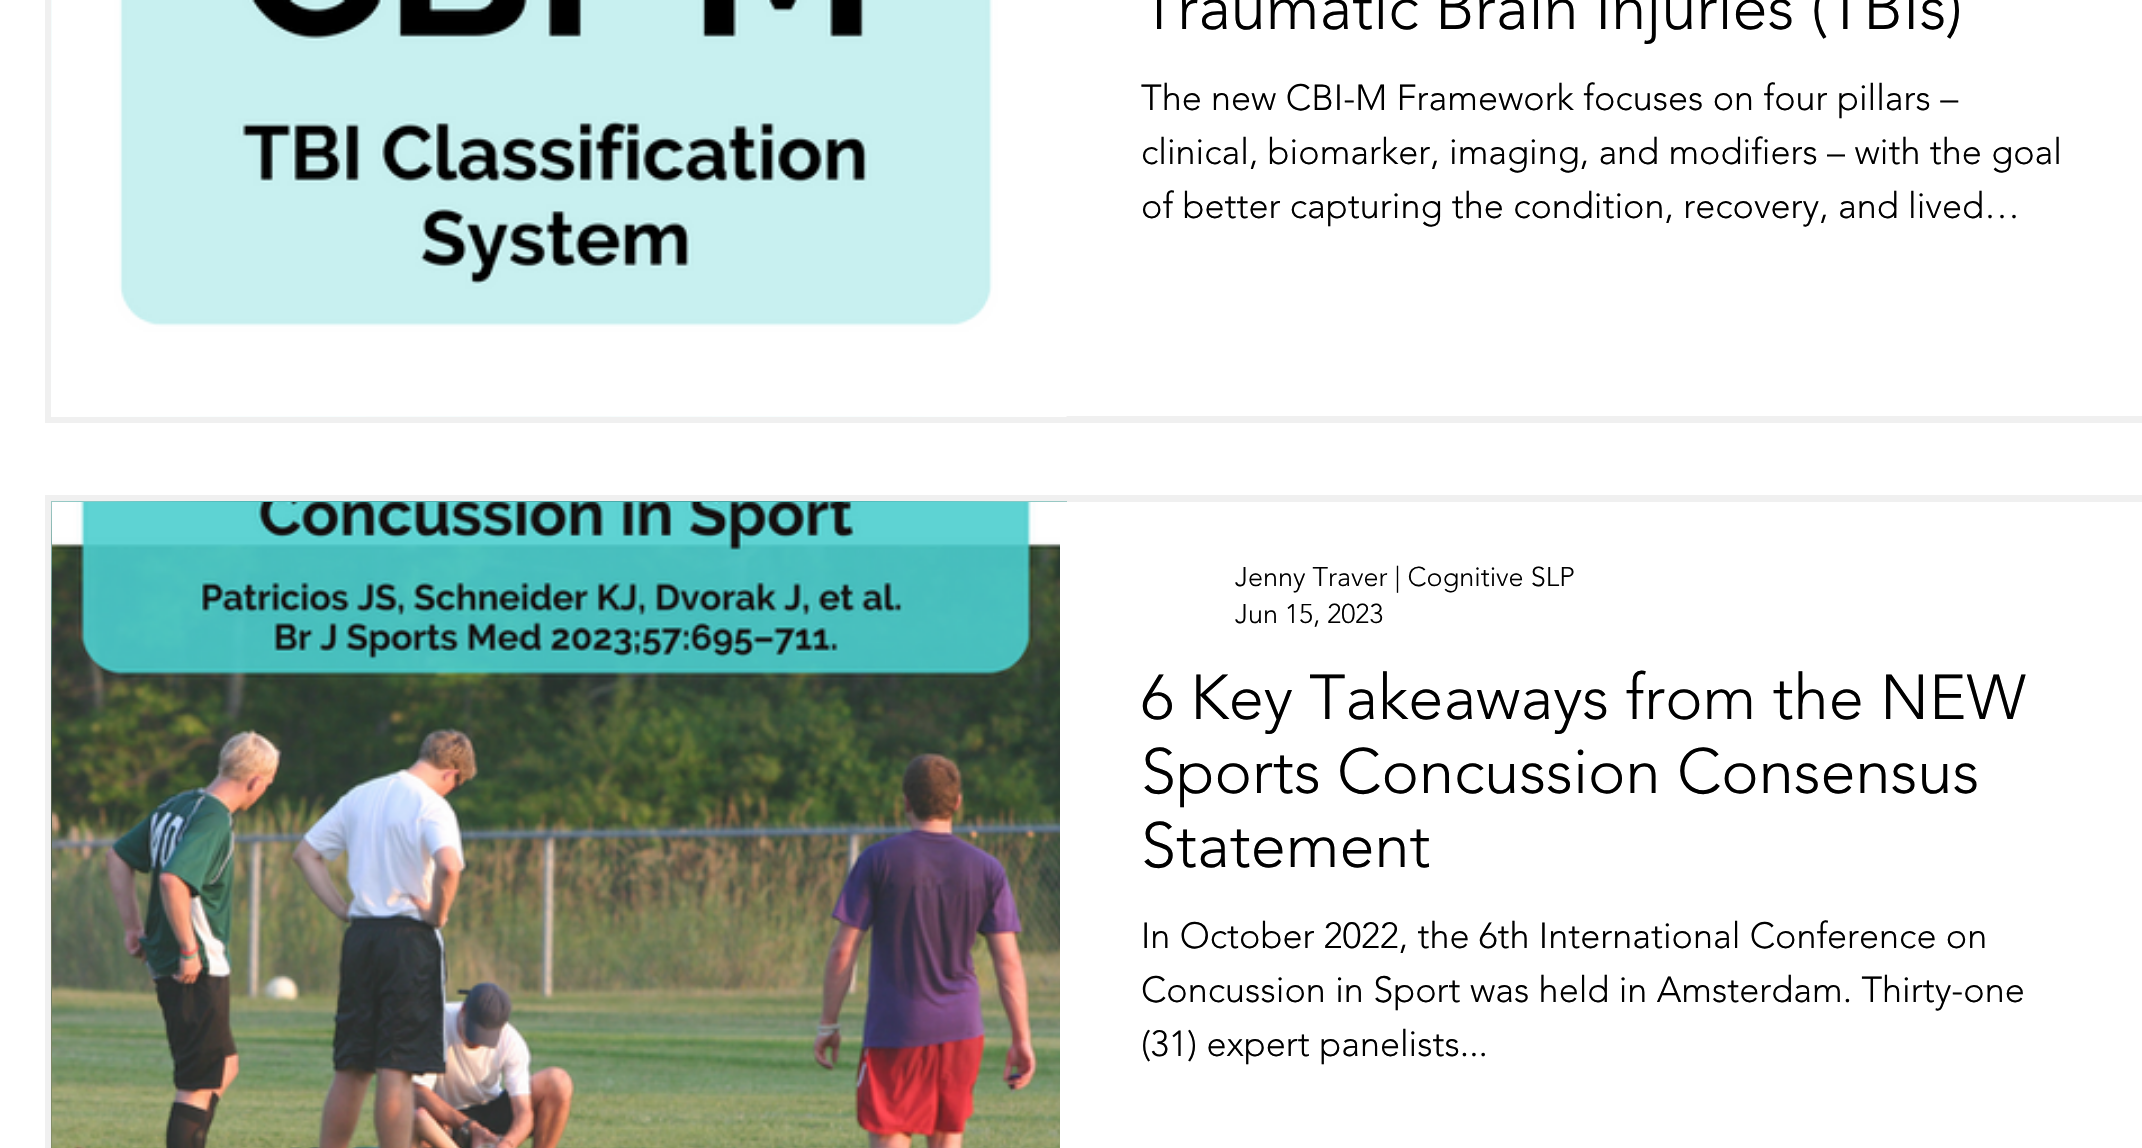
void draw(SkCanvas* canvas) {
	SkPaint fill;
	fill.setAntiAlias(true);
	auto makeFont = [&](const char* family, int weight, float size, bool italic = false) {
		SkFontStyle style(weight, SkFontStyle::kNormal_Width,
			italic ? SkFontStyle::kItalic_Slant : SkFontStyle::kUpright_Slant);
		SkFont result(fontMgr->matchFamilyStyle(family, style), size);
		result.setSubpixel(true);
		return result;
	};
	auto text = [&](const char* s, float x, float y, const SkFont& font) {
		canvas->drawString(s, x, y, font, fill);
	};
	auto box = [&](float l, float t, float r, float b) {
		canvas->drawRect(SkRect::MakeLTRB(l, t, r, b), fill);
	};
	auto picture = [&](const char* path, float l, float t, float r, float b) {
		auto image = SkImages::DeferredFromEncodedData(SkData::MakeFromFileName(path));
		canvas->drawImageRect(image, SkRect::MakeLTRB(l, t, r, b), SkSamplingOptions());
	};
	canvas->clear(0xFFFFFFFF);
	fill.setStyle(SkPaint::kStroke_Style);
	fill.setStrokeWidth(7);
	fill.setColor(0xFFF0F0F0);
	canvas->drawRect(SkRect::MakeLTRB(48.5f, -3.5f, 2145.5f, 419.5f), fill);
	picture("image0.png", 51, 0, 1067, 417);
	picture("image1.png", 52, 0, 1067, 416);
	canvas->drawRect(SkRect::MakeLTRB(48.5f, 498.5f, 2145.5f, 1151.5f), fill);
	picture("image2.png", 51, 501, 1067, 1148);
	picture("image3.png", 52, 502, 1060, 1148);
	fill.setStyle(SkPaint::kFill_Style);
	fill.setColor(0xFFFFFFFF);
	box(1060, 502, 1067, 1148);
	auto font1 = makeFont("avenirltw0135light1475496", 300, 63);
	fill.setColor(0xFF000000);
	text("Traumatic Brain Injuries (TBIs)", 1141, 29, font1);
	auto font2 = makeFont("avenirltw0135light1475496", 300, 36);
	text("The new CBI-M Framework focuses on four pillars –", 1141, 110, font2);
	text("clinical, biomarker, imaging, and modifiers – with the goal", 1141, 164, font2);
	text("of better capturing the condition, recovery, and lived…", 1141, 218, font2);
	auto font3 = makeFont("avenirltw0135light1475496", 300, 27);
	text("Jenny Traver | Cognitive SLP", 1235, 586, font3);
	text("Jun 15, 2023", 1235, 623, font3);
	text("6 Key Takeaways from the NEW", 1141, 719, font1);
	text("Sports Concussion Consensus", 1141, 793, font1);
	text("Statement", 1141, 867, font1);
	text("In October 2022, the 6th International Conference on", 1141, 948, font2);
	text("Concussion in Sport was held in Amsterdam. Thirty-one", 1141, 1002, font2);
	text("(31) expert panelists...", 1141, 1056, font2);
}
